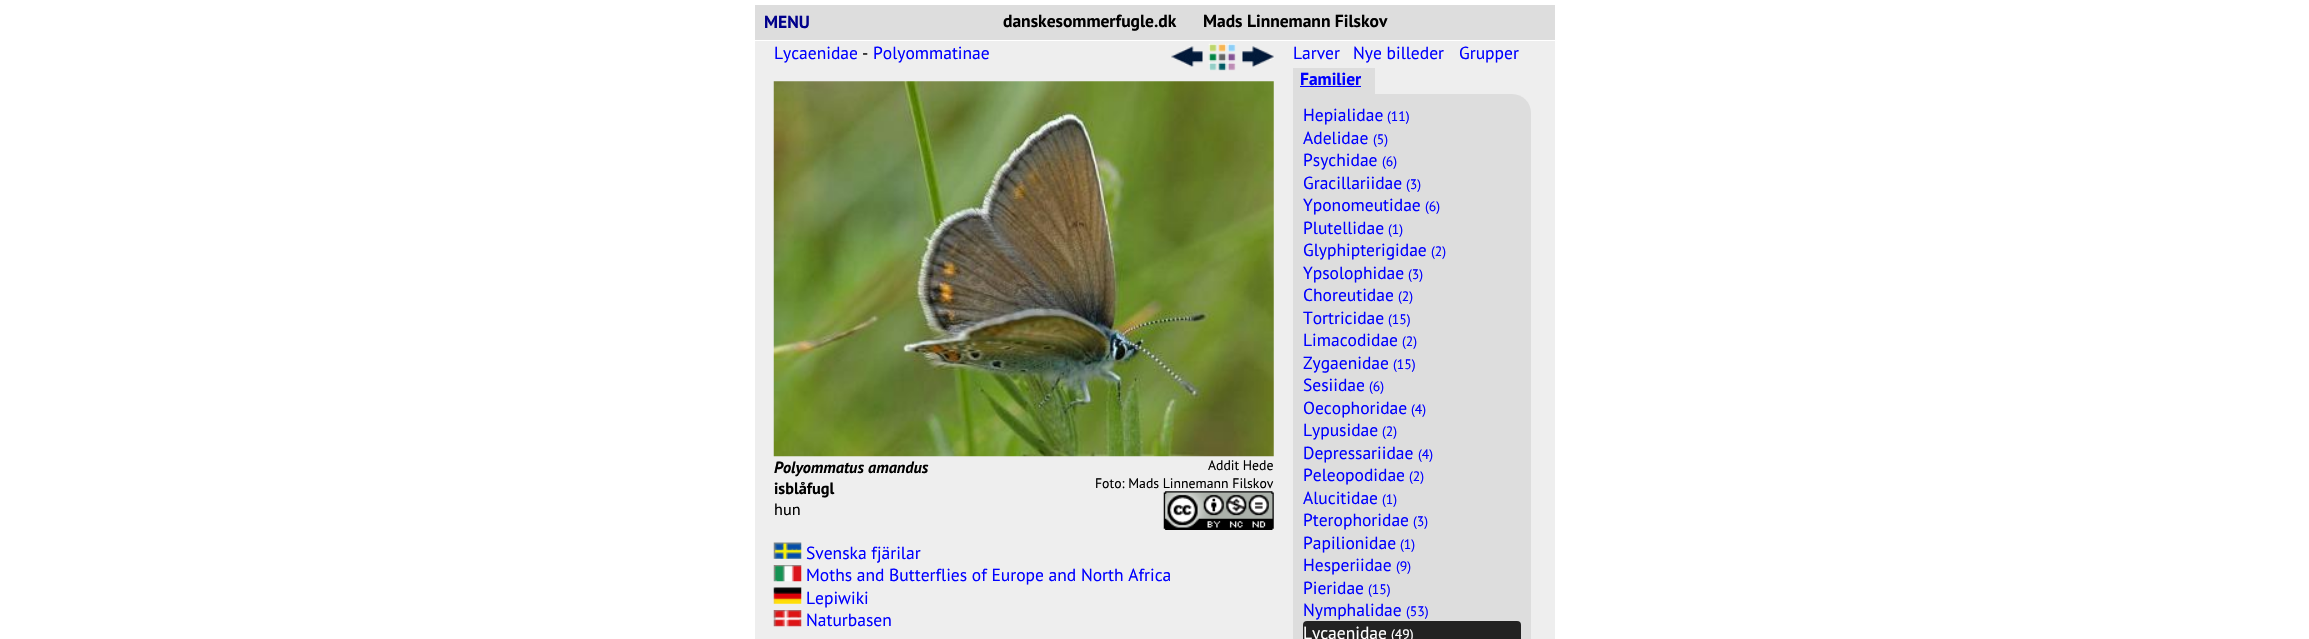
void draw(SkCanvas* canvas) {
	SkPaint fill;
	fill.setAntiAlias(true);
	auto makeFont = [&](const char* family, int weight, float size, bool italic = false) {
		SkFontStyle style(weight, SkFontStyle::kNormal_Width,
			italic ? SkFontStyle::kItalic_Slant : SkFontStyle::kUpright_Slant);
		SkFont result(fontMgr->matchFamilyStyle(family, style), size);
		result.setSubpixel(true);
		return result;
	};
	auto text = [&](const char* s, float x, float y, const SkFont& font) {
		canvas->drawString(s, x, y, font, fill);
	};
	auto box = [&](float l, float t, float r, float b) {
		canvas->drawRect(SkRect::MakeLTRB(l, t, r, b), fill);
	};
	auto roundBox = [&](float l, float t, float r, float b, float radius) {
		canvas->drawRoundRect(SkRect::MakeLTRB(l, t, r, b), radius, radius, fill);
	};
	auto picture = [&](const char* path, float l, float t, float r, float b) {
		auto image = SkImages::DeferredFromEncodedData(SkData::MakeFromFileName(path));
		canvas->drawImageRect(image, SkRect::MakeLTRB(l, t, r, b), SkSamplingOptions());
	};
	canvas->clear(0xFFFFFFFF);
	fill.setColor(0xFFEEEEEE);
	box(755, 41, 1555, 639);
	fill.setColor(0xFFDDDDDD);
	box(755, 5, 1555, 40);
	picture("image0.png", 1171, 46, 1203, 67);
	picture("image1.png", 1208, 43, 1236, 71);
	picture("image2.png", 1242, 46, 1274, 68);
	picture("image3.png", 773, 81, 1274, 457);
	picture("image4.png", 1163, 491, 1274, 530);
	picture("image5.png", 773, 542, 802, 559);
	picture("image6.png", 773, 565, 802, 582);
	picture("image7.png", 773, 587, 802, 604);
	picture("image8.png", 773, 610, 802, 627);
	box(1293, 68, 1361, 94);
	box(1361, 68, 1366, 98);
	box(1366, 68, 1375, 94);
	fill.setColor(0xFF0000FF);
	box(1300, 86, 1361, 87);
	fill.setColor(0xFFDDDDDD);
	canvas->drawPath(SkPathBuilder().moveTo(1293, 94).lineTo(1512, 94).cubicTo(1522.5f, 94, 1531, 102.5f, 1531, 113).lineTo(1531, 639).cubicTo(1531, 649.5f, 1522.5f, 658, 1512, 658).lineTo(1312, 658).cubicTo(1301.5f, 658, 1293, 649.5f, 1293, 639).close().detach(), fill);
	fill.setColor(0xFF222222);
	roundBox(1303, 621, 1521, 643, 4);
	auto font1 = makeFont("PT Sans", 700, 17.5f);
	fill.setColor(0xFF00008B);
	text("MENU", 764, 28, font1);
	fill.setColor(0xFF000000);
	text("danskesommerfugle.dk", 1003, 27, font1);
	text("Mads Linnemann Filskov", 1203, 27, font1);
	auto font2 = makeFont("PT Sans", 400, 17.5f);
	fill.setColor(0xFF0000FF);
	text("Lycaenidae", 774, 59, font2);
	fill.setColor(0xFF000000);
	text("-", 862, 59, font2);
	fill.setColor(0xFF0000FF);
	text("Polyommatinae", 873, 59, font2);
	auto font3 = makeFont("PT Sans", 700, 16.25f, true);
	fill.setColor(0xFF000000);
	text("Polyommatus amandus", 774, 473, font3);
	auto font4 = makeFont("PT Sans", 700, 16.25f);
	text("isblåfugl", 774, 494, font4);
	auto font5 = makeFont("PT Sans", 400, 16.25f);
	text("hun", 774, 515, font5);
	auto font6 = makeFont("PT Sans", 400, 13.75f);
	text("Addit Hede", 1208, 470, font6);
	text("Foto: Mads Linnemann Filskov", 1095, 488, font6);
	fill.setColor(0xFF0000FF);
	text("Svenska fjärilar", 806, 559, font2);
	text("Moths and Butterflies of Europe and North Africa", 806, 581, font2);
	text("Lepiwiki", 806, 604, font2);
	text("Naturbasen", 806, 626, font2);
	text("Larver", 1293, 59, font2);
	text("Nye billeder", 1353, 59, font2);
	text("Grupper", 1459, 59, font2);
	text("Familier", 1300, 85, font1);
	text("Hepialidae", 1303, 121, font2);
	text("(11)", 1387, 121, font6);
	text("Adelidae", 1303, 144, font2);
	text("(5)", 1373, 144, font6);
	text("Psychidae", 1303, 166, font2);
	text("(6)", 1382, 166, font6);
	text("Gracillariidae", 1303, 189, font2);
	text("(3)", 1406, 189, font6);
	text("Yponomeutidae", 1303, 211, font2);
	text("(6)", 1425, 211, font6);
	text("Plutellidae", 1303, 234, font2);
	text("(1)", 1388, 234, font6);
	text("Glyphipterigidae", 1303, 256, font2);
	text("(2)", 1431, 256, font6);
	text("Ypsolophidae", 1303, 279, font2);
	text("(3)", 1408, 279, font6);
	text("Choreutidae", 1303, 301, font2);
	text("(2)", 1398, 301, font6);
	text("Tortricidae", 1303, 324, font2);
	text("(15)", 1388, 324, font6);
	text("Limacodidae", 1303, 346, font2);
	text("(2)", 1402, 346, font6);
	text("Zygaenidae", 1303, 369, font2);
	text("(15)", 1393, 369, font6);
	text("Sesiidae", 1303, 391, font2);
	text("(6)", 1369, 391, font6);
	text("Oecophoridae", 1303, 414, font2);
	text("(4)", 1411, 414, font6);
	text("Lypusidae", 1303, 436, font2);
	text("(2)", 1382, 436, font6);
	text("Depressariidae", 1303, 459, font2);
	text("(4)", 1418, 459, font6);
	text("Peleopodidae", 1303, 481, font2);
	text("(2)", 1409, 481, font6);
	text("Alucitidae", 1303, 504, font2);
	text("(1)", 1382, 504, font6);
	text("Pterophoridae", 1303, 526, font2);
	text("(3)", 1413, 526, font6);
	text("Papilionidae", 1303, 549, font2);
	text("(1)", 1400, 549, font6);
	text("Hesperiidae", 1303, 571, font2);
	text("(9)", 1396, 571, font6);
	text("Pieridae", 1303, 594, font2);
	text("(15)", 1368, 594, font6);
	text("Nymphalidae", 1303, 616, font2);
	text("(53)", 1406, 616, font6);
	fill.setColor(0xFFFFFFFF);
	text("Lycaenidae", 1303, 639, font2);
	text("(49)", 1391, 639, font6);
}
